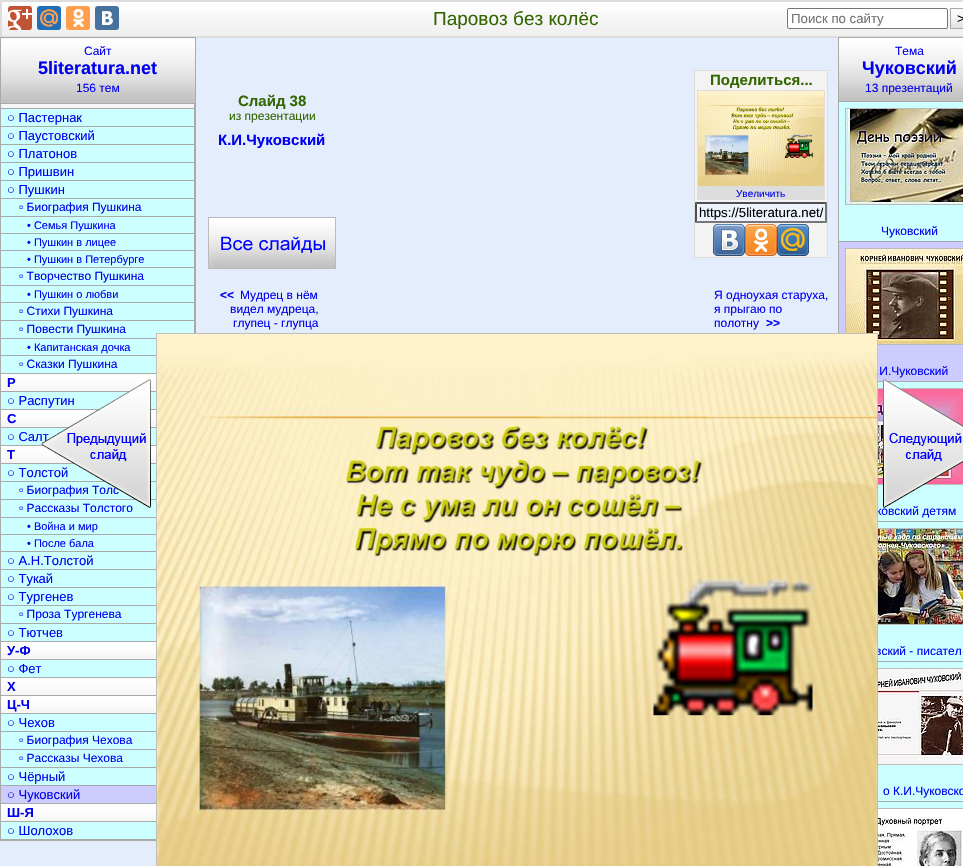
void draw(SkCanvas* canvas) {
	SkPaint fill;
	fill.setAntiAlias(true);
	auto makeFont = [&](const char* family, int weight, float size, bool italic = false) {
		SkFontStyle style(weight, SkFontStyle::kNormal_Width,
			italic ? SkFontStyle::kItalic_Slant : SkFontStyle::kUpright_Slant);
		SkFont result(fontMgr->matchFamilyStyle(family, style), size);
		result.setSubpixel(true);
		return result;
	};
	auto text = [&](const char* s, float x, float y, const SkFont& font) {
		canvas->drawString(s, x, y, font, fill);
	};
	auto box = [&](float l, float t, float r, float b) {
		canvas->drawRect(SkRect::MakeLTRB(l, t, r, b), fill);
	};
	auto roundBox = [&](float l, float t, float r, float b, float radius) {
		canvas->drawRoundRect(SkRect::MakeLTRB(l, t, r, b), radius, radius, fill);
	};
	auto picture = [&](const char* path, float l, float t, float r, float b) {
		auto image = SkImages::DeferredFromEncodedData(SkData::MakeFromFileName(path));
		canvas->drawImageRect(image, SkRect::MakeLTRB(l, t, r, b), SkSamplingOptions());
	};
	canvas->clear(0xFFE3EDFB);
	picture("image0.png", 2, 2, 963, 36);
	fill.setStyle(SkPaint::kStroke_Style);
	fill.setStrokeWidth(2);
	fill.setColor(0xFFDDDDDD);
	canvas->drawRect(SkRect::MakeLTRB(1, 1, 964, 37), fill);
	fill.setStyle(SkPaint::kFill_Style);
	fill.setColor(0xFFC25234);
	roundBox(8, 6, 32, 30, 3);
	picture("image1.png", 8, 9, 32, 30);
	fill.setColor(0xFF226EB7);
	roundBox(37, 6, 61, 30, 3);
	picture("image2.png", 40, 9, 58, 27);
	fill.setColor(0xFFFF9F4D);
	roundBox(66, 6, 90, 30, 3);
	picture("image3.png", 73, 9, 84, 27);
	fill.setColor(0xFF48729E);
	roundBox(95, 6, 119, 30, 3);
	picture("image4.png", 102, 11, 113, 25);
	fill.setColor(0xFFFFFFFF);
	canvas->drawRoundRect(SkRect::MakeLTRB(787.5f, 8.5f, 947.5f, 28.5f), 1.5f, 1.5f, fill);
	fill.setStyle(SkPaint::kStroke_Style);
	fill.setStrokeWidth(1);
	fill.setColor(0xFF767676);
	canvas->drawRoundRect(SkRect::MakeLTRB(787.5f, 8.5f, 947.5f, 28.5f), 1.5f, 1.5f, fill);
	picture("image5.png", 951, 19, 963, 28);
	fill.setColor(0xFFAAAAAA);
	canvas->drawRect(SkRect::MakeLTRB(950.5f, 8.5f, 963.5f, 28.5f), fill);
	picture("image6.png", 1, 38, 195, 103);
	canvas->drawRect(SkRect::MakeLTRB(0.5f, 37.5f, 195.5f, 103.5f), fill);
	picture("image7.png", 209, 218, 335, 268);
	fill.setColor(0xFFBBBBBB);
	canvas->drawRect(SkRect::MakeLTRB(208.5f, 217.5f, 335.5f, 268.5f), fill);
	fill.setStyle(SkPaint::kFill_Style);
	fill.setColor(0xFFF3F3F3);
	canvas->drawRect(SkRect::MakeLTRB(694.5f, 70.5f, 827.5f, 257.5f), fill);
	fill.setStyle(SkPaint::kStroke_Style);
	fill.setColor(0xFFDDDDDD);
	canvas->drawRect(SkRect::MakeLTRB(694.5f, 70.5f, 827.5f, 257.5f), fill);
	fill.setStyle(SkPaint::kFill_Style);
	box(697, 90, 825, 200);
	picture("image8.png", 698, 91, 824, 186);
	fill.setColor(0xFFEEF4FD);
	box(695, 202, 827, 223);
	fill.setColor(0xFF4F4F4F);
	canvas->drawPath(SkPathBuilder().moveTo(695, 202).lineTo(827, 202).lineTo(825, 204).lineTo(697, 204).close().detach(), fill);
	fill.setColor(0xFF767676);
	canvas->drawPath(SkPathBuilder().moveTo(827, 202).lineTo(827, 223).lineTo(825, 221).lineTo(825, 204).close().detach(), fill);
	canvas->drawPath(SkPathBuilder().moveTo(827, 223).lineTo(695, 223).lineTo(697, 221).lineTo(825, 221).close().detach(), fill);
	fill.setColor(0xFF4F4F4F);
	canvas->drawPath(SkPathBuilder().moveTo(695, 223).lineTo(695, 202).lineTo(697, 204).lineTo(697, 221).close().detach(), fill);
	picture("image9.png", 713, 224, 745, 256);
	picture("image10.png", 745, 224, 777, 256);
	picture("image11.png", 777, 224, 809, 256);
	fill.setStyle(SkPaint::kStroke_Style);
	fill.setColor(0xFFAAAAAA);
	canvas->drawRect(SkRect::MakeLTRB(838.5f, 37.5f, 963.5f, 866.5f), fill);
	picture("image15.png", 839, 38, 963, 101);
	fill.setStyle(SkPaint::kFill_Style);
	fill.setColor(0xFFCCFFFF);
	box(839, 102, 963, 241);
	fill.setColor(0xFFAAAAAA);
	box(839, 101, 963, 102);
	fill.setStyle(SkPaint::kStroke_Style);
	fill.setColor(0xFFBBBBBB);
	canvas->drawRect(SkRect::MakeLTRB(845.5f, 108.5f, 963.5f, 204.5f), fill);
	picture("image16.png", 846, 109, 963, 204);
	fill.setStyle(SkPaint::kFill_Style);
	fill.setColor(0xFFCCCCFF);
	box(839, 242, 963, 381);
	fill.setColor(0xFFAAAAAA);
	box(839, 241, 963, 242);
	fill.setStyle(SkPaint::kStroke_Style);
	fill.setColor(0xFFBBBBBB);
	canvas->drawRect(SkRect::MakeLTRB(845.5f, 248.5f, 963.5f, 344.5f), fill);
	picture("image17.png", 846, 249, 963, 344);
	fill.setStyle(SkPaint::kFill_Style);
	fill.setColor(0xFFCCFFFF);
	box(878, 382, 963, 521);
	fill.setColor(0xFFAAAAAA);
	box(878, 381, 963, 382);
	fill.setStyle(SkPaint::kStroke_Style);
	fill.setColor(0xFFBBBBBB);
	canvas->drawRect(SkRect::MakeLTRB(845.5f, 388.5f, 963.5f, 484.5f), fill);
	picture("image18.png", 878, 389, 963, 484);
	fill.setStyle(SkPaint::kFill_Style);
	fill.setColor(0xFFCCFFFF);
	box(878, 522, 963, 661);
	fill.setColor(0xFFAAAAAA);
	box(878, 521, 963, 522);
	fill.setStyle(SkPaint::kStroke_Style);
	fill.setColor(0xFFBBBBBB);
	canvas->drawRect(SkRect::MakeLTRB(845.5f, 528.5f, 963.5f, 624.5f), fill);
	picture("image19.png", 878, 529, 963, 624);
	fill.setStyle(SkPaint::kFill_Style);
	fill.setColor(0xFFCCFFFF);
	box(878, 662, 963, 801);
	fill.setColor(0xFFAAAAAA);
	box(878, 661, 963, 662);
	fill.setStyle(SkPaint::kStroke_Style);
	fill.setColor(0xFFBBBBBB);
	canvas->drawRect(SkRect::MakeLTRB(845.5f, 668.5f, 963.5f, 764.5f), fill);
	picture("image20.png", 878, 669, 963, 764);
	fill.setStyle(SkPaint::kFill_Style);
	fill.setColor(0xFFCCFFFF);
	box(878, 802, 963, 808);
	fill.setColor(0xFFAAAAAA);
	box(878, 801, 963, 802);
	fill.setStyle(SkPaint::kStroke_Style);
	fill.setColor(0xFFBBBBBB);
	canvas->drawRect(SkRect::MakeLTRB(845.5f, 808.5f, 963.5f, 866.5f), fill);
	picture("image21.png", 878, 809, 963, 866);
	fill.setStyle(SkPaint::kFill_Style);
	fill.setColor(0xFFCCFFFF);
	box(1, 109, 194, 839);
	fill.setStyle(SkPaint::kStroke_Style);
	fill.setColor(0xFFAAAAAA);
	canvas->drawRect(SkRect::MakeLTRB(0.5f, 103.5f, 195.5f, 840.5f), fill);
	fill.setStyle(SkPaint::kFill_Style);
	fill.setColor(0xFFF6F6F6);
	box(1, 104, 195, 108);
	fill.setColor(0xFFAAAAAA);
	box(194, 104, 195, 339);
	box(1, 108, 195, 109);
	box(1, 126, 195, 127);
	box(1, 144, 195, 145);
	box(1, 162, 195, 163);
	box(1, 180, 195, 181);
	box(1, 198, 195, 199);
	box(1, 216, 195, 217);
	box(1, 233, 195, 234);
	box(1, 250, 195, 251);
	box(1, 267, 195, 268);
	box(1, 285, 195, 286);
	box(1, 302, 195, 303);
	box(1, 320, 195, 321);
	box(1, 338, 156, 339);
	box(1, 355, 156, 356);
	box(1, 373, 156, 374);
	picture("image22.png", 1, 374, 156, 391);
	box(1, 391, 156, 392);
	box(1, 409, 156, 410);
	picture("image22.png", 1, 410, 156, 427);
	box(1, 427, 156, 428);
	box(1, 445, 156, 446);
	picture("image22.png", 1, 446, 156, 463);
	box(1, 463, 156, 464);
	box(1, 481, 156, 482);
	box(1, 499, 156, 500);
	box(1, 517, 156, 518);
	box(1, 534, 156, 535);
	box(1, 551, 156, 552);
	box(1, 569, 156, 570);
	box(1, 587, 156, 588);
	box(1, 605, 156, 606);
	box(1, 623, 156, 624);
	box(1, 641, 156, 642);
	picture("image22.png", 1, 642, 156, 659);
	box(1, 659, 156, 660);
	box(1, 677, 156, 678);
	picture("image22.png", 1, 678, 156, 695);
	box(1, 695, 156, 696);
	picture("image22.png", 1, 696, 156, 713);
	box(1, 713, 156, 714);
	box(1, 731, 156, 732);
	box(1, 749, 156, 750);
	box(1, 767, 156, 768);
	box(1, 785, 156, 786);
	fill.setColor(0xFFCCCCFF);
	box(1, 786, 156, 803);
	fill.setColor(0xFFAAAAAA);
	box(1, 803, 156, 804);
	picture("image22.png", 1, 804, 156, 821);
	box(1, 821, 156, 822);
	box(1, 839, 156, 840);
	auto font1 = makeFont("Liberation Sans", 400, 19);
	fill.setColor(0xFF336600);
	text("Паровоз без колёс", 433, 25, font1);
	auto font2 = makeFont("Liberation Sans", 400, 13.25f);
	fill.setColor(0xFF757575);
	text("Поиск по сайту", 791, 23, font2);
	fill.setColor(0xFF000000);
	text(">", 957, 23, font2);
	auto font3 = makeFont("Liberation Sans", 400, 12);
	fill.setColor(0xFF0000EE);
	text("Сайт", 84, 55, font3);
	auto font4 = makeFont("Liberation Sans", 700, 18);
	text("5literatura.net", 38, 74, font4);
	text("156 тем", 76, 92, font3);
	auto font5 = makeFont("Liberation Sans", 700, 15);
	fill.setColor(0xFF336600);
	text("Cлайд 38", 238, 106, font5);
	text("из презентации", 229, 120, font3);
	fill.setColor(0xFF0000EE);
	text("К.И.Чуковский", 218, 145, font5);
	fill.setColor(0xFF336600);
	text("Поделиться...", 710, 85, font5);
	auto font6 = makeFont("Liberation Sans", 400, 10);
	fill.setColor(0xFF0000EE);
	text("Увеличить", 736, 197, font6);
	canvas->save();
	canvas->clipRect(SkRect::MakeLTRB(699, 205, 823, 220));
	fill.setColor(0xFF000000);
	text("https://5literatura.net/", 699, 217, font2);
	canvas->restore();
	auto font7 = makeFont("Liberation Sans", 700, 12);
	fill.setColor(0xFF0000EE);
	text("<<", 220, 299, font7);
	text("Мудрец в нём", 240, 299, font3);
	text("видел мудреца,", 230, 313, font3);
	text("глупец - глупца", 233, 327, font3);
	text("Я одноухая старуха,", 714, 299, font3);
	text("я прыгаю по", 714, 313, font3);
	text("полотну", 714, 327, font3);
	text(">>", 766, 327, font7);
	text("Тема", 895, 55, font3);
	text("Чуковский", 862, 74, font4);
	text("13 презентаций", 865, 92, font3);
	text("Чуковский", 881, 235, font3);
	text(".И.Чуковский", 876, 375, font3);
	text("ковский детям", 876, 515, font3);
	picture("image13.png", 883, 379, 963, 508);
	text("вский - писател", 875, 655, font3);
	fill.setColor(0xFFFFFFFF);
	canvas->drawRect(SkRect::MakeLTRB(156.5f, 333.5f, 877.5f, 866.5f), fill);
	fill.setStyle(SkPaint::kStroke_Style);
	fill.setColor(0xFFBBBBBB);
	canvas->drawRect(SkRect::MakeLTRB(156.5f, 333.5f, 877.5f, 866.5f), fill);
	picture("image14.png", 156, 333, 878, 866);
	fill.setStyle(SkPaint::kFill_Style);
	fill.setColor(0xFF0000EE);
	text("о К.И.Чуковско", 883, 795, font3);
	auto font8 = makeFont("Liberation Sans", 400, 13);
	text("○ Пастернак", 7, 122, font8);
	text("○ Паустовский", 7, 140, font8);
	text("○ Платонов", 7, 158, font8);
	text("○ Пришвин", 7, 176, font8);
	text("○ Пушкин", 7, 194, font8);
	text("▫ Биография Пушкина", 19, 211, font3);
	auto font9 = makeFont("Liberation Sans", 400, 11);
	text("• Семья Пушкина", 27, 229, font9);
	text("• Пушкин в лицее", 27, 246, font9);
	text("• Пушкин в Петербурге", 27, 263, font9);
	text("▫ Творчество Пушкина", 19, 280, font3);
	text("• Пушкин о любви", 27, 298, font9);
	text("▫ Стихи Пушкина", 19, 315, font3);
	text("▫ Повести Пушкина", 19, 333, font3);
	text("• Капитанская дочка", 27, 351, font9);
	text("▫ Сказки Пушкина", 19, 368, font3);
	auto font10 = makeFont("Liberation Sans", 700, 13);
	text("Р", 7, 387, font10);
	text("○ Распутин", 7, 405, font8);
	text("С", 7, 423, font10);
	text("○ Салт", 7, 441, font8);
	text("Т", 7, 459, font10);
	text("○ Толстой", 7, 477, font8);
	text("▫ Биография Толс", 19, 494, font3);
	text("▫ Рассказы Толстого", 19, 512, font3);
	picture("image12.png", 41, 379, 151, 508);
	text("• Война и мир", 27, 530, font9);
	text("• После бала", 27, 547, font9);
	text("○ А.Н.Толстой", 7, 565, font8);
	text("○ Тукай", 7, 583, font8);
	text("○ Тургенев", 7, 601, font8);
	text("▫ Проза Тургенева", 19, 618, font3);
	text("○ Тютчев", 7, 637, font8);
	text("У-Ф", 7, 655, font10);
	text("○ Фет", 7, 673, font8);
	text("Х", 7, 691, font10);
	text("Ц-Ч", 7, 709, font10);
	text("○ Чехов", 7, 727, font8);
	text("▫ Биография Чехова", 19, 744, font3);
	text("▫ Рассказы Чехова", 19, 762, font3);
	text("○ Чёрный", 7, 781, font8);
	text("○ Чуковский", 7, 799, font8);
	text("Ш-Я", 7, 817, font10);
	text("○ Шолохов", 7, 835, font8);
}
